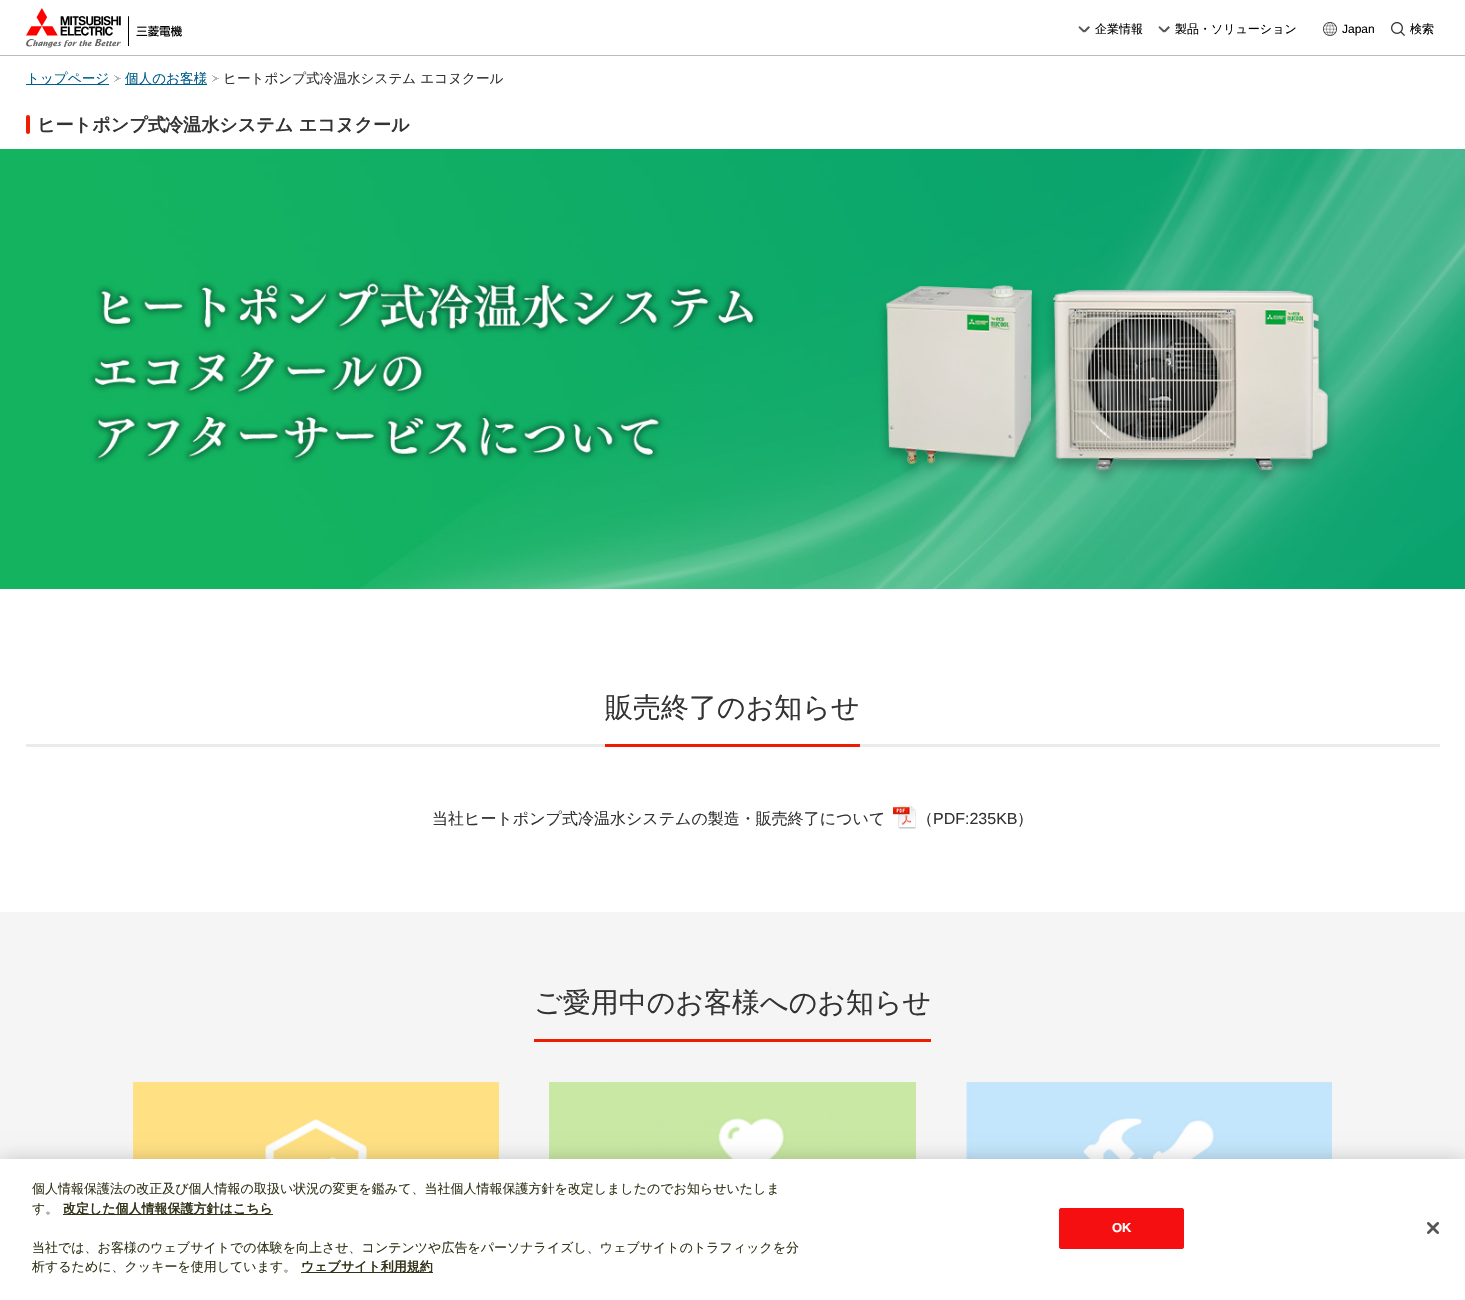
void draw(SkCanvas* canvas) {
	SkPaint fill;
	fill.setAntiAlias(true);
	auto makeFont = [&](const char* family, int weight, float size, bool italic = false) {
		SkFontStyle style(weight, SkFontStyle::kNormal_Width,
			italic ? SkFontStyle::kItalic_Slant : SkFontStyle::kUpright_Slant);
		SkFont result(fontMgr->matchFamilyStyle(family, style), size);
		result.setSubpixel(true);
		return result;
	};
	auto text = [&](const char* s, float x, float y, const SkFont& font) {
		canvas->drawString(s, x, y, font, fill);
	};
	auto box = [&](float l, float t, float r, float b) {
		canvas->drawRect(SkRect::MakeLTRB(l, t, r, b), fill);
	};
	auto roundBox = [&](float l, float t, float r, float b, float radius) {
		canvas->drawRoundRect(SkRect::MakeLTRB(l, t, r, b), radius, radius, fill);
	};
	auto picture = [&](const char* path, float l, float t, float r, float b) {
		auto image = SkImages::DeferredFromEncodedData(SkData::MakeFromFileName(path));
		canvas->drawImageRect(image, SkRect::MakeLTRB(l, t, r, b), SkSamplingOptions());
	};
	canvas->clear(0xFFFFFFFF);
	fill.setColor(0xFFBBBBBB);
	box(0, 55, 1465, 56);
	picture("image0.png", 26, 8, 182, 48);
	fill.setColor(0xFF555555);
	canvas->drawPath(SkPathBuilder().moveTo(1079.5f, 26).lineTo(1085, 31).lineTo(1083.5f, 32.5f).lineTo(1078.5f, 27.5f).close().detach(), fill);
	canvas->drawPath(SkPathBuilder().moveTo(1083.5f, 31).lineTo(1088.5f, 26).lineTo(1090, 27.5f).lineTo(1085, 32.5f).close().detach(), fill);
	canvas->drawPath(SkPathBuilder().moveTo(1159.5f, 26).lineTo(1165, 31).lineTo(1163.5f, 32.5f).lineTo(1158.5f, 27.5f).close().detach(), fill);
	canvas->drawPath(SkPathBuilder().moveTo(1163.5f, 31).lineTo(1168.5f, 26).lineTo(1170, 27.5f).lineTo(1165, 32.5f).close().detach(), fill);
	picture("image1.png", 1323, 22, 1337, 36);
	picture("image2.png", 1391, 22, 1405, 36);
	fill.setColor(0xFF005E8C);
	box(26, 84, 109, 85);
	picture("image3.png", 114, 75, 121, 82);
	box(125, 84, 207, 85);
	picture("image3.png", 212, 75, 219, 82);
	fill.setColor(0xFFEC1D00);
	roundBox(26, 115, 30, 134, 2);
	picture("image4.png", 0, 149, 1465, 589);
	fill.setColor(0xFFEBEBEB);
	box(26, 744, 1440, 747);
	fill.setColor(0xFFEC1D00);
	box(605, 744, 860, 747);
	picture("image5.png", 893, 805, 916, 829);
	fill.setColor(0xFFF5F5F5);
	box(0, 912, 1465, 1159);
	fill.setColor(0xFFEC1D00);
	box(534, 1039, 931, 1042);
	picture("image6.png", 133, 1082, 499, 1159);
	picture("image7.png", 549, 1082, 916, 1159);
	picture("image8.png", 966, 1082, 1332, 1159);
	fill.setColor(0x33000000);
	fill.setMaskFilter(SkMaskFilter::MakeBlur(kNormal_SkBlurStyle, 9));
	canvas->drawRect(SkRect::MakeLTRB(0, 1159, 1465, 1300), fill);
	fill.setMaskFilter(nullptr);
	fill.setColor(0xFFFFFFFF);
	box(0, 1159, 1465, 1300);
	fill.setColor(0xFF33331A);
	box(63, 1214, 273, 1215);
	box(301, 1272, 433, 1273);
	fill.setColor(0xFFF50F10);
	canvas->drawRoundRect(SkRect::MakeLTRB(1059.5f, 1208.5f, 1183.5f, 1248.5f), 1.5f, 1.5f, fill);
	fill.setStyle(SkPaint::kStroke_Style);
	fill.setStrokeWidth(1);
	canvas->drawRoundRect(SkRect::MakeLTRB(1059.5f, 1208.5f, 1183.5f, 1248.5f), 1.5f, 1.5f, fill);
	picture("image9.png", 1427, 1222, 1439, 1234);
	auto font1 = makeFont("WenQuanYi Zen Hei", 500, 12);
	fill.setStyle(SkPaint::kFill_Style);
	fill.setColor(0xFF000000);
	text("企業情報", 1095, 33, font1);
	text("製品・ソリューション", 1175, 33, font1);
	auto font2 = makeFont("Liberation Sans", 400, 12);
	text("Japan", 1342, 33, font2);
	text("検索", 1410, 33, font1);
	auto font3 = makeFont("WenQuanYi Zen Hei", 500, 13.6f);
	fill.setColor(0xFF005E8C);
	text("トップページ", 26, 83, font3);
	text("個人のお客様", 125, 83, font3);
	fill.setColor(0xFF333333);
	text("ヒートポンプ式冷温水システム エコヌクール", 223, 83, font3);
	auto font4 = makeFont("WenQuanYi Zen Hei", 700, 18.1f);
	text("ヒートポンプ式", 37, 131, font4);
	text("冷温水システム エコヌクール", 165, 131, font4);
	auto font5 = makeFont("WenQuanYi Zen Hei", 500, 28);
	text("販売終了のお知らせ", 605, 717, font5);
	auto font6 = makeFont("WenQuanYi Zen Hei", 500, 16);
	text("当社ヒートポンプ式冷温水システムの製造・販売終了について", 432, 824, font6);
	text("（", 917, 824, font6);
	auto font7 = makeFont("Liberation Sans", 400, 16);
	text("PDF:235KB", 933, 824, font7);
	text("）", 1017, 824, font6);
	text("ご愛用中のお客様へのお知らせ", 534, 1012, font5);
	auto font8 = makeFont("WenQuanYi Zen Hei", 500, 13);
	fill.setColor(0xFF33331A);
	text("個人情報保護法の改正及び個人情報の取扱い状況の変更を鑑みて、当社個人情報保護方針を改定しましたのでお知らせいたしま", 32, 1193, font8);
	text("す。", 32, 1213, font8);
	auto font9 = makeFont("WenQuanYi Zen Hei", 700, 13);
	text("改定した個人情報保護方針はこちら", 63, 1213, font9);
	text("当社では、お客様のウェブサイトでの体験を向上させ、コンテンツや広告をパーソナライズし、ウェブサイトのトラフィックを分", 32, 1252, font8);
	text("析するために、クッキーを使用しています。", 32, 1271, font8);
	text("ウェブサイト利用規約", 301, 1271, font9);
	auto font10 = makeFont("Liberation Sans", 700, 13);
	fill.setColor(0xFFFFFFFF);
	text("OK", 1112, 1232, font10);
}
